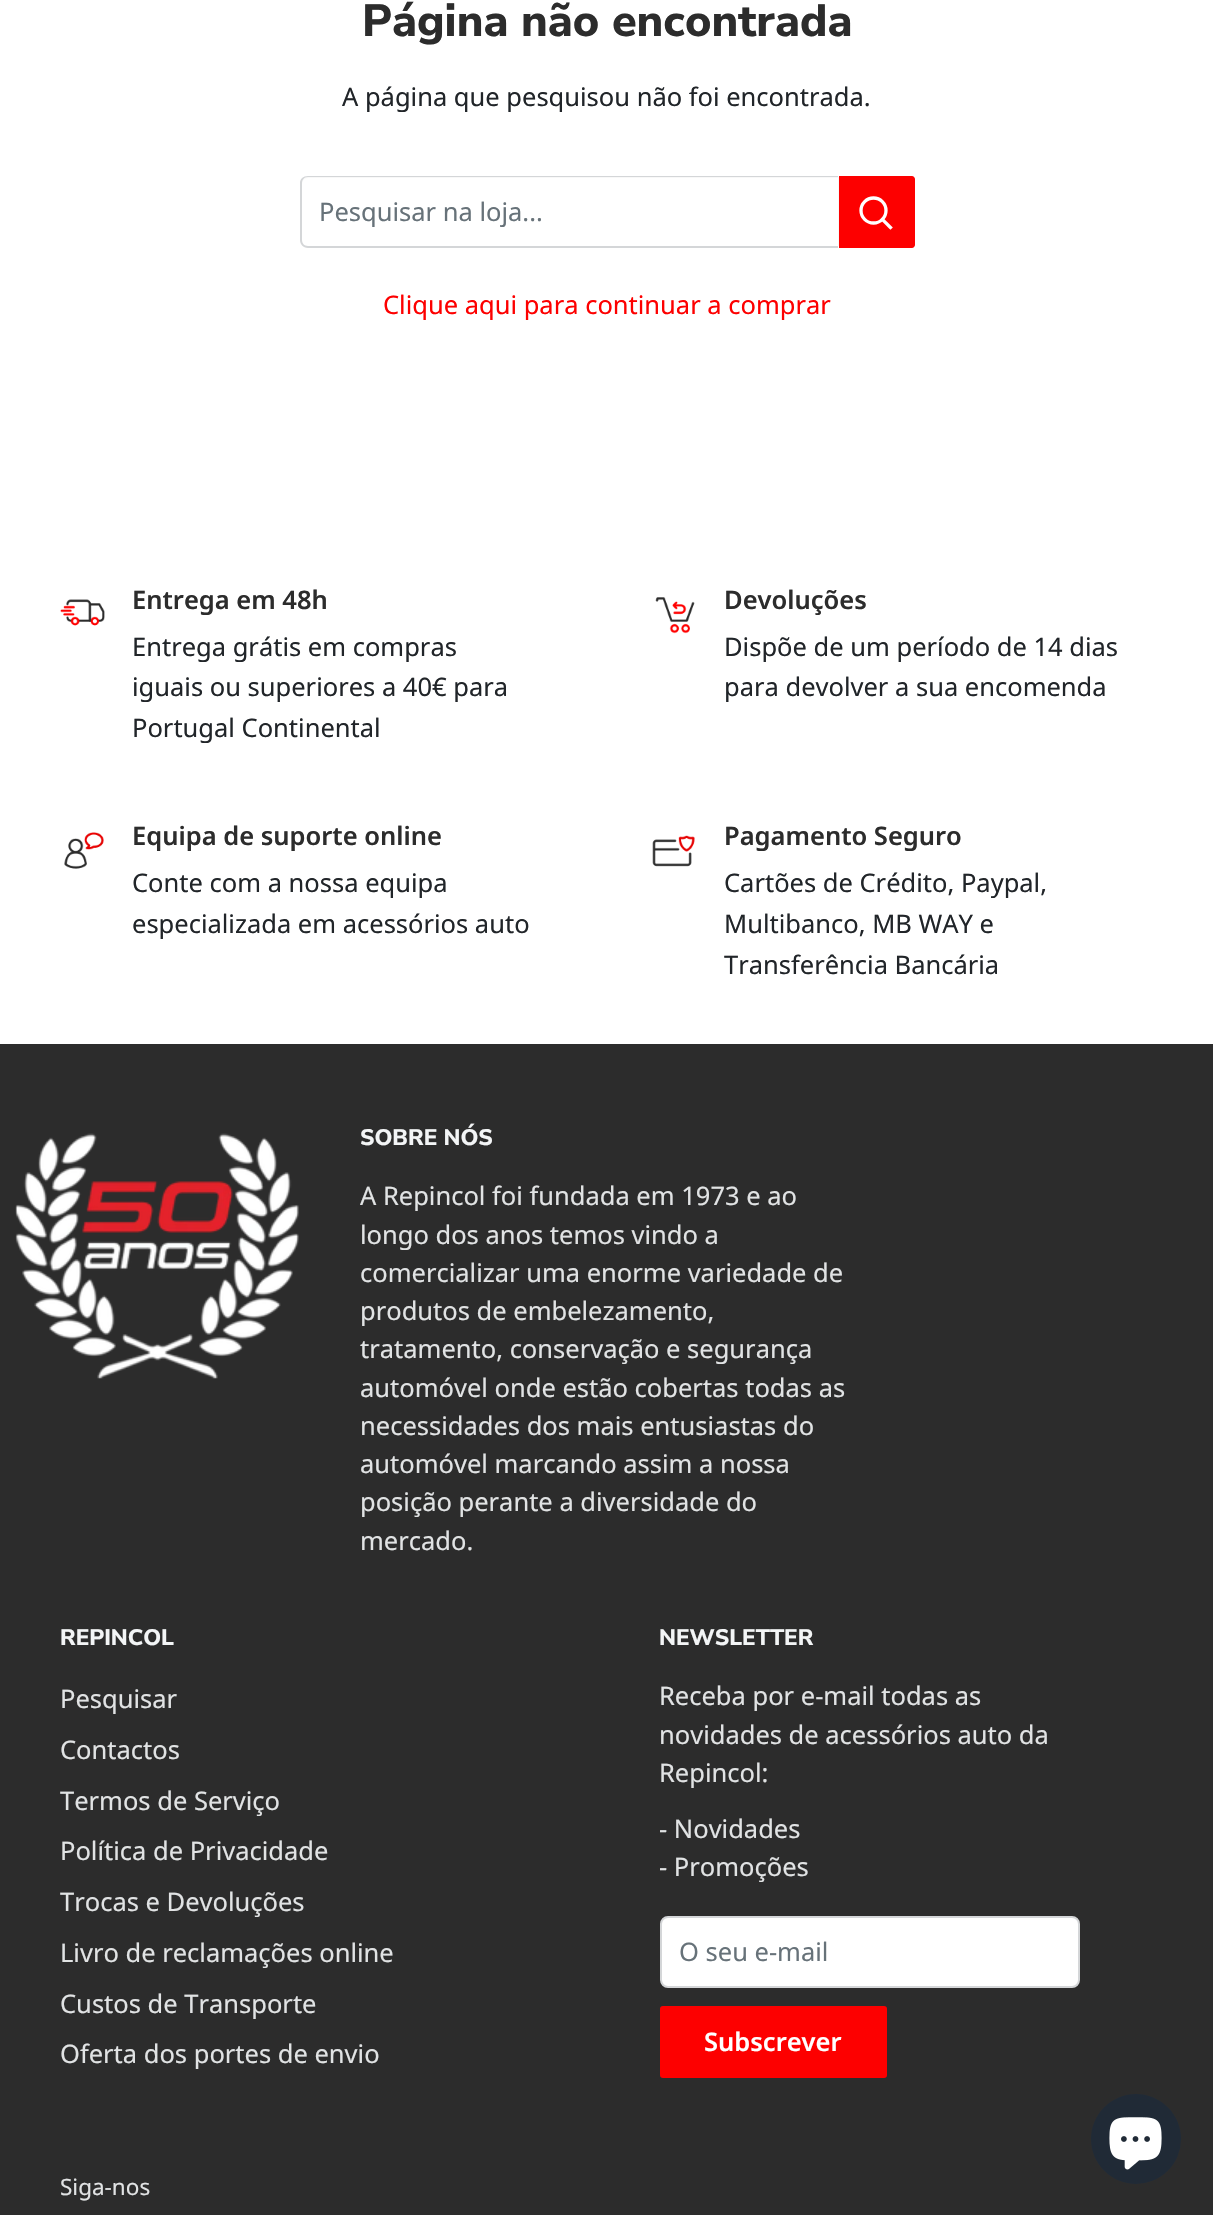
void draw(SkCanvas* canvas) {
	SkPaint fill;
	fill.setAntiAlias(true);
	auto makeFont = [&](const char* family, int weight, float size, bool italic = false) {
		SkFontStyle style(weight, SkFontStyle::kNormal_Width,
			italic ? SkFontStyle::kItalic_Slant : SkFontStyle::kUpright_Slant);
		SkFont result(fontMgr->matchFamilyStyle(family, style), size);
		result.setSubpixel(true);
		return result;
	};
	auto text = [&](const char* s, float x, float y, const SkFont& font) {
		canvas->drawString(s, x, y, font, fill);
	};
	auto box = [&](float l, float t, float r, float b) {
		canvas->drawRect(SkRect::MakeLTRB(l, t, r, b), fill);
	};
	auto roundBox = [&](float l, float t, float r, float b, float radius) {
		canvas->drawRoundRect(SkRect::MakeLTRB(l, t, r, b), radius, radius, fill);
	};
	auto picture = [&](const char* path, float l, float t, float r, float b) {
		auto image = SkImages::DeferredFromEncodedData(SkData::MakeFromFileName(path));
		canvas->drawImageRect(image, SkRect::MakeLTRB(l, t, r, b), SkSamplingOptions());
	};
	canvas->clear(0xFFFFFFFF);
	fill.setColor(0xFFF8F8F8);
	canvas->drawPath(SkPathBuilder().moveTo(308, 178).lineTo(838, 178).lineTo(838, 246).lineTo(839, 246).lineTo(839, 177).lineTo(308, 177).cubicTo(305, 177, 302, 180, 302, 183).lineTo(302, 184).cubicTo(302, 181, 304, 178, 308, 178).close().detach(), fill);
	fill.setColor(0xFFD4D6D8);
	canvas->drawPath(SkPathBuilder(SkPathFillType::kEvenOdd).moveTo(308, 176).lineTo(838, 176).lineTo(838, 248).lineTo(308, 248).cubicTo(303, 248, 300, 244, 300, 240).lineTo(300, 183).cubicTo(300, 179, 303, 176, 308, 176).close().moveTo(308, 177).lineTo(838, 177).lineTo(838, 246).lineTo(308, 246).cubicTo(304, 246, 302, 243, 302, 240).lineTo(302, 183).cubicTo(302, 180, 304, 177, 308, 177).close().detach(), fill);
	fill.setColor(0xFFFD0000);
	canvas->drawPath(SkPathBuilder().moveTo(839, 176).lineTo(912, 176).cubicTo(913.5f, 176, 915, 177.5f, 915, 179).lineTo(915, 245).cubicTo(915, 246.5f, 913.5f, 248, 912, 248).lineTo(839, 248).close().detach(), fill);
	fill.setStyle(SkPaint::kStroke_Style);
	fill.setStrokeWidth(3.3f);
	fill.setStrokeCap(SkPaint::kSquare_Cap);
	fill.setColor(0xFFFFFFFF);
	canvas->drawPath(SkPathBuilder().moveTo(890.5f, 227.5f).lineTo(882.5f, 219.5f).detach(), fill);
	fill.setStrokeCap(SkPaint::kButt_Cap);
	canvas->drawCircle(873.5f, 210.5f, 12.5f, fill);
	picture("image0.png", 60, 599, 105, 626);
	picture("image1.png", 655, 597, 695, 634);
	picture("image2.png", 64, 832, 104, 869);
	picture("image3.png", 652, 835, 695, 867);
	fill.setStyle(SkPaint::kFill_Style);
	fill.setColor(0xFF2C2C2C);
	box(0, 1044, 1213, 2215);
	picture("image4.png", 15, 1133, 299, 1379);
	fill.setColor(0xFFFFFFFF);
	canvas->drawRoundRect(SkRect::MakeLTRB(661, 1917, 1079, 1987), 7, 7, fill);
	fill.setStyle(SkPaint::kStroke_Style);
	fill.setStrokeWidth(2);
	fill.setColor(0xFFD4D6D8);
	canvas->drawRoundRect(SkRect::MakeLTRB(661, 1917, 1079, 1987), 7, 7, fill);
	fill.setStyle(SkPaint::kFill_Style);
	fill.setColor(0xFFFD0000);
	roundBox(660, 2006, 887, 2078, 3);
	fill.setColor(0xFF202A36);
	canvas->drawCircle(1136, 2139, 45, fill);
	picture("image5.png", 1109, 2117, 1162, 2170);
	auto font1 = makeFont("Nunito Sans", 800, 45);
	fill.setColor(0xFF2C2C2C);
	text("Página não encontrada", 362, 36, font1);
	auto font2 = makeFont("Noto Sans", 400, 25.5f);
	fill.setColor(0xFF212529);
	text("A página que pesquisou não foi encontrada.", 342, 106, font2);
	fill.setColor(0xFF677279);
	text("Pesquisar na loja...", 319, 221, font2);
	fill.setColor(0xFFFD0000);
	text("Clique aqui para continuar a comprar", 383, 314, font2);
	auto font3 = makeFont("Noto Sans", 600, 25.5f);
	fill.setColor(0xFF2C2C2C);
	text("Entrega em 48h", 132, 609, font3);
	fill.setColor(0xFF212529);
	text("Entrega grátis em compras", 132, 656, font2);
	text("iguais ou superiores a 40€ para", 132, 696, font2);
	text("Portugal Continental", 132, 737, font2);
	fill.setColor(0xFF2C2C2C);
	text("Devoluções", 724, 609, font3);
	fill.setColor(0xFF212529);
	text("Dispõe de um período de 14 dias", 724, 656, font2);
	text("para devolver a sua encomenda", 724, 696, font2);
	fill.setColor(0xFF2C2C2C);
	text("Equipa de suporte online", 132, 845, font3);
	fill.setColor(0xFF212529);
	text("Conte com a nossa equipa", 132, 892, font2);
	text("especializada em acessórios auto", 132, 933, font2);
	fill.setColor(0xFF2C2C2C);
	text("Pagamento Seguro", 724, 845, font3);
	fill.setColor(0xFF212529);
	text("Cartões de Crédito, Paypal,", 724, 892, font2);
	text("Multibanco, MB WAY e", 724, 933, font2);
	text("Transferência Bancária", 724, 974, font2);
	auto font4 = makeFont("Nunito Sans", 800, 22.5f);
	fill.setColor(0xFFF3F5F6);
	text("SOBRE NÓS", 360, 1145, font4);
	fill.setColor(0xFFE1E3E4);
	text("A Repincol foi fundada em 1973 e ao", 360, 1205, font2);
	text("longo dos anos temos vindo a", 360, 1244, font2);
	text("comercializar uma enorme variedade de", 360, 1282, font2);
	text("produtos de embelezamento,", 360, 1320, font2);
	text("tratamento, conservação e segurança", 360, 1358, font2);
	text("automóvel onde estão cobertas todas as", 360, 1397, font2);
	text("necessidades dos mais entusiastas do", 360, 1435, font2);
	text("automóvel marcando assim a nossa", 360, 1473, font2);
	text("posição perante a diversidade do", 360, 1511, font2);
	text("mercado.", 360, 1550, font2);
	fill.setColor(0xFFF3F5F6);
	text("REPINCOL", 60, 1645, font4);
	fill.setColor(0xFFE1E3E4);
	text("Pesquisar", 60, 1708, font2);
	text("Contactos", 60, 1759, font2);
	text("Termos de Serviço", 60, 1810, font2);
	text("Política de Privacidade", 60, 1860, font2);
	text("Trocas e Devoluções", 60, 1911, font2);
	text("Livro de reclamações online", 60, 1962, font2);
	text("Custos de Transporte", 60, 2013, font2);
	text("Oferta dos portes de envio", 60, 2063, font2);
	fill.setColor(0xFFF3F5F6);
	text("NEWSLETTER", 659, 1645, font4);
	fill.setColor(0xFFE1E3E4);
	text("Receba por e-mail todas as", 659, 1705, font2);
	text("novidades de acessórios auto da", 659, 1744, font2);
	text("Repincol:", 659, 1782, font2);
	text("- Novidades", 659, 1838, font2);
	text("- Promoções", 659, 1876, font2);
	fill.setColor(0xFF677279);
	text("O seu e-mail", 679, 1961, font2);
	fill.setColor(0xFFFFFFFF);
	text("Subscrever", 704, 2051, font3);
	auto font5 = makeFont("Noto Sans", 400, 22.5f);
	fill.setColor(0xFFE1E3E4);
	text("Siga-nos", 60, 2195, font5);
}
